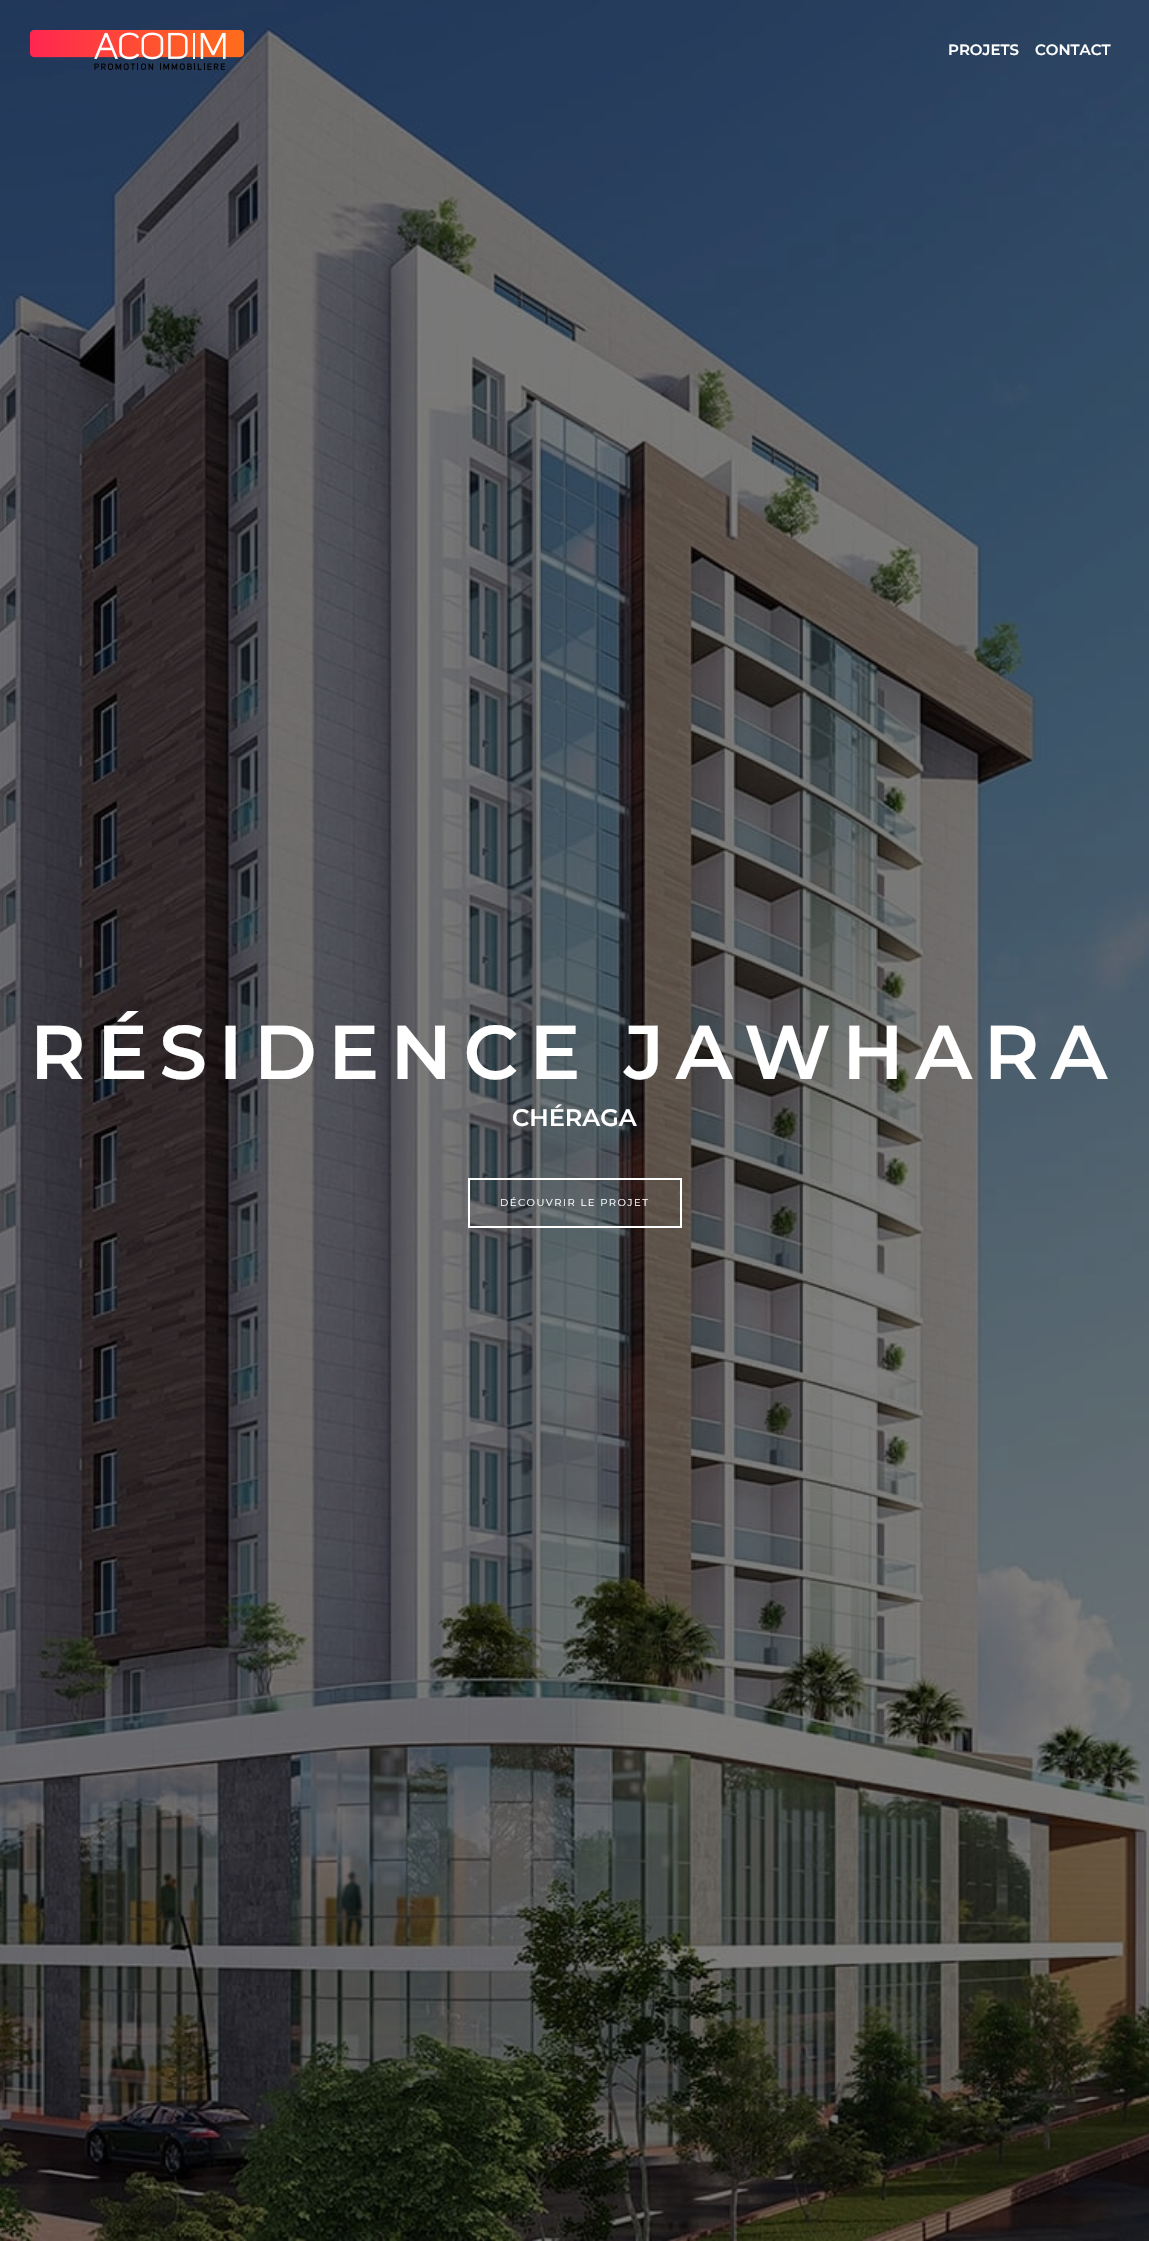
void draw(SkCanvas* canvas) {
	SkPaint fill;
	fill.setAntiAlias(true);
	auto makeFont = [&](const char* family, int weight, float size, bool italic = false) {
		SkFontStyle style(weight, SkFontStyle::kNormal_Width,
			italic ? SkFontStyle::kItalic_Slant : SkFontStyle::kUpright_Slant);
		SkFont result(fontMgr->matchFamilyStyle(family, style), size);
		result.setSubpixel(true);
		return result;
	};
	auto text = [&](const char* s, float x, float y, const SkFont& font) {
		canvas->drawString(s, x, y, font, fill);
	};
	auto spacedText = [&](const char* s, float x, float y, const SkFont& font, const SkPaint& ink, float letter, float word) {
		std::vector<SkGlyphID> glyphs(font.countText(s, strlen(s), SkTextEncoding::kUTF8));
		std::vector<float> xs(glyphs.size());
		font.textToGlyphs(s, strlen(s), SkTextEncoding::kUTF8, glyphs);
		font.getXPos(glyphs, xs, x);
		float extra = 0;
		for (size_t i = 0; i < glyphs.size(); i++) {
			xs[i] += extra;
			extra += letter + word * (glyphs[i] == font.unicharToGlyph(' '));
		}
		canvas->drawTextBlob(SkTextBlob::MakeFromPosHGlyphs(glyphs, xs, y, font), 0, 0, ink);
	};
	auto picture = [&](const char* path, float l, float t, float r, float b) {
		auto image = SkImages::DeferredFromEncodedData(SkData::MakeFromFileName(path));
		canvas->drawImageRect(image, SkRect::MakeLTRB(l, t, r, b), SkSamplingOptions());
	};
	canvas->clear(0xFFFFFFFF);
	picture("image1.png", 0, 0, 1149, 2241);
	picture("image0.png", 30, 30, 244, 70);
	fill.setStyle(SkPaint::kStroke_Style);
	fill.setStrokeWidth(2);
	fill.setColor(0xFFFFFFFF);
	canvas->drawRect(SkRect::MakeLTRB(469, 1179, 681, 1227), fill);
	auto font1 = makeFont("Montserrat", 600, 15);
	fill.setStyle(SkPaint::kFill_Style);
	text("PROJETS", 948, 55, font1);
	text("CONTACT", 1035, 55, font1);
	auto font2 = makeFont("Montserrat", 600, 76);
	spacedText("RÉSIDENCE JAWHARA", 30, 1079, font2, fill, 11.4f, 0);
	auto font3 = makeFont("Montserrat", 600, 24);
	text("CHÉRAGA", 512, 1126, font3);
	auto font4 = makeFont("Montserrat", 400, 10);
	spacedText("DÉCOUVRIR LE PROJET", 500, 1206, font4, fill, 1.5f, 0);
}
